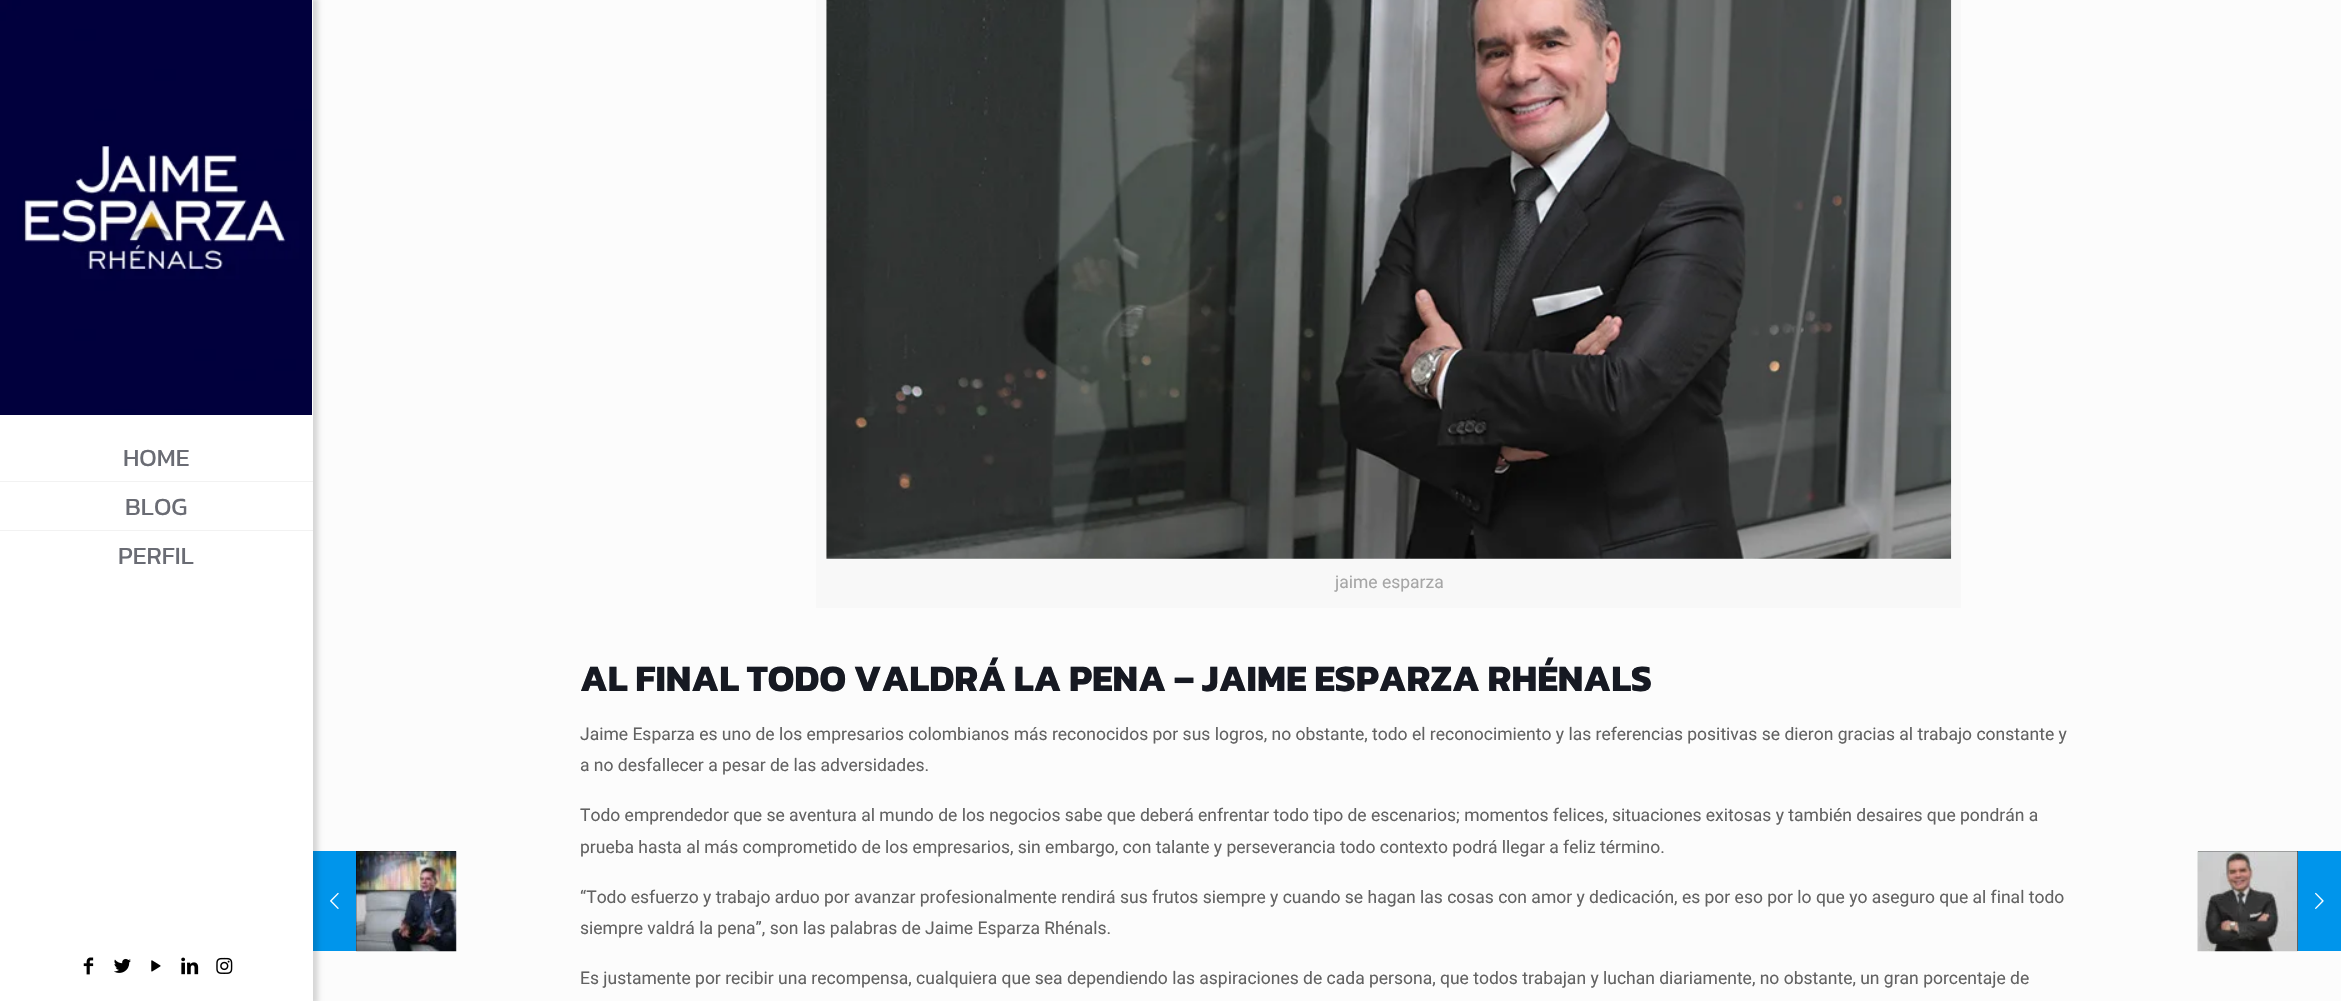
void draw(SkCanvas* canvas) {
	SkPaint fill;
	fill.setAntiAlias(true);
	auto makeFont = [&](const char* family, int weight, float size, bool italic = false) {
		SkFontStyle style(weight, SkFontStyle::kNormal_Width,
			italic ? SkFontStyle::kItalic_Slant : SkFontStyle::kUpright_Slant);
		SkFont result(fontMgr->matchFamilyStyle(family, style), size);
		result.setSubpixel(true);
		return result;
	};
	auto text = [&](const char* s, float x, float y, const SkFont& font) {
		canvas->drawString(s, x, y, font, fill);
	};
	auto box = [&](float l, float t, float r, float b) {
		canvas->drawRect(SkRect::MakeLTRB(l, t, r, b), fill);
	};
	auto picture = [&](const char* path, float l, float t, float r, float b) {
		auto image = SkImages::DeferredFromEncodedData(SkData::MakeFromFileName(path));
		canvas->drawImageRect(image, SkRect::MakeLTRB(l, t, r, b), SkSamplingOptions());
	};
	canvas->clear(0xFFFCFCFC);
	fill.setColor(0xFF0095EB);
	box(313, 851, 356, 951);
	fill.setColor(0x26000000);
	fill.setMaskFilter(SkMaskFilter::MakeBlur(kNormal_SkBlurStyle, 2.5f));
	canvas->drawRect(SkRect::MakeLTRB(0, -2, 318, 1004), fill);
	fill.setMaskFilter(nullptr);
	fill.setColor(0xFFFFFFFF);
	box(0, 0, 313, 1001);
	picture("image0.png", 0, 0, 312, 415);
	fill.setColor(0xFFF2F2F2);
	box(0, 481, 313, 482);
	box(0, 530, 313, 531);
	picture("image1.png", 83, 957, 94, 975);
	picture("image2.png", 114, 958, 131, 973);
	picture("image3.png", 151, 960, 161, 972);
	picture("image4.png", 181, 957, 199, 975);
	picture("image5.png", 216, 957, 233, 974);
	picture("image6.png", 330, 892, 339, 909);
	fill.setColor(0xFF000000);
	box(356, 851, 456, 951);
	picture("image7.png", 356, 851, 457, 952);
	fill.setStyle(SkPaint::kStroke_Style);
	fill.setStrokeWidth(10);
	fill.setColor(0xFFF8F8F8);
	canvas->drawRect(SkRect::MakeLTRB(821, -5, 1956, 603), fill);
	picture("image8.png", 826, 0, 1952, 559);
	fill.setStyle(SkPaint::kFill_Style);
	box(826, 559, 1951, 598);
	fill.setColor(0xFF000000);
	box(2198, 851, 2298, 951);
	picture("image9.png", 2197, 851, 2298, 952);
	fill.setColor(0xFF0095EB);
	box(2298, 851, 2341, 951);
	picture("image10.png", 2315, 892, 2324, 909);
	auto font1 = makeFont("Kanit", 400, 25);
	fill.setColor(0xFF6A6C74);
	text("HOME", 123, 466, font1);
	text("BLOG", 125, 515, font1);
	text("PERFIL", 118, 564, font1);
	auto font2 = makeFont("Roboto", 400, 17.5f);
	fill.setColor(0xFFA6A6A6);
	text("jaime esparza", 1335, 588, font2);
	auto font3 = makeFont("Kanit", 700, 37.5f);
	fill.setColor(0xFF161922);
	text("AL FINAL TODO VALDRÁ LA PENA – JAIME ESPARZA RHÉNALS", 580, 691, font3);
	fill.setColor(0xFF626262);
	text("Jaime Esparza es uno de los empresarios colombianos más reconocidos por sus logros, no obstante, todo el reconocimiento y las referencias positivas se dieron gracias al trabajo constante y", 580, 740, font2);
	text("a no desfallecer a pesar de las adversidades.", 580, 771, font2);
	text("Todo emprendedor que se aventura al mundo de los negocios sabe que deberá enfrentar todo tipo de escenarios; momentos felices, situaciones exitosas y también desaires que pondrán a", 580, 821, font2);
	text("prueba hasta al más comprometido de los empresarios, sin embargo, con talante y perseverancia todo contexto podrá llegar a feliz término.", 580, 853, font2);
	text("“Todo esfuerzo y trabajo arduo por avanzar profesionalmente rendirá sus frutos siempre y cuando se hagan las cosas con amor y dedicación, es por eso por lo que yo aseguro que al final todo", 580, 903, font2);
	text("siempre valdrá la pena”, son las palabras de Jaime Esparza Rhénals.", 580, 934, font2);
	text("Es justamente por recibir una recompensa, cualquiera que sea dependiendo las aspiraciones de cada persona, que todos trabajan y luchan diariamente, no obstante, un gran porcentaje de", 580, 984, font2);
}
